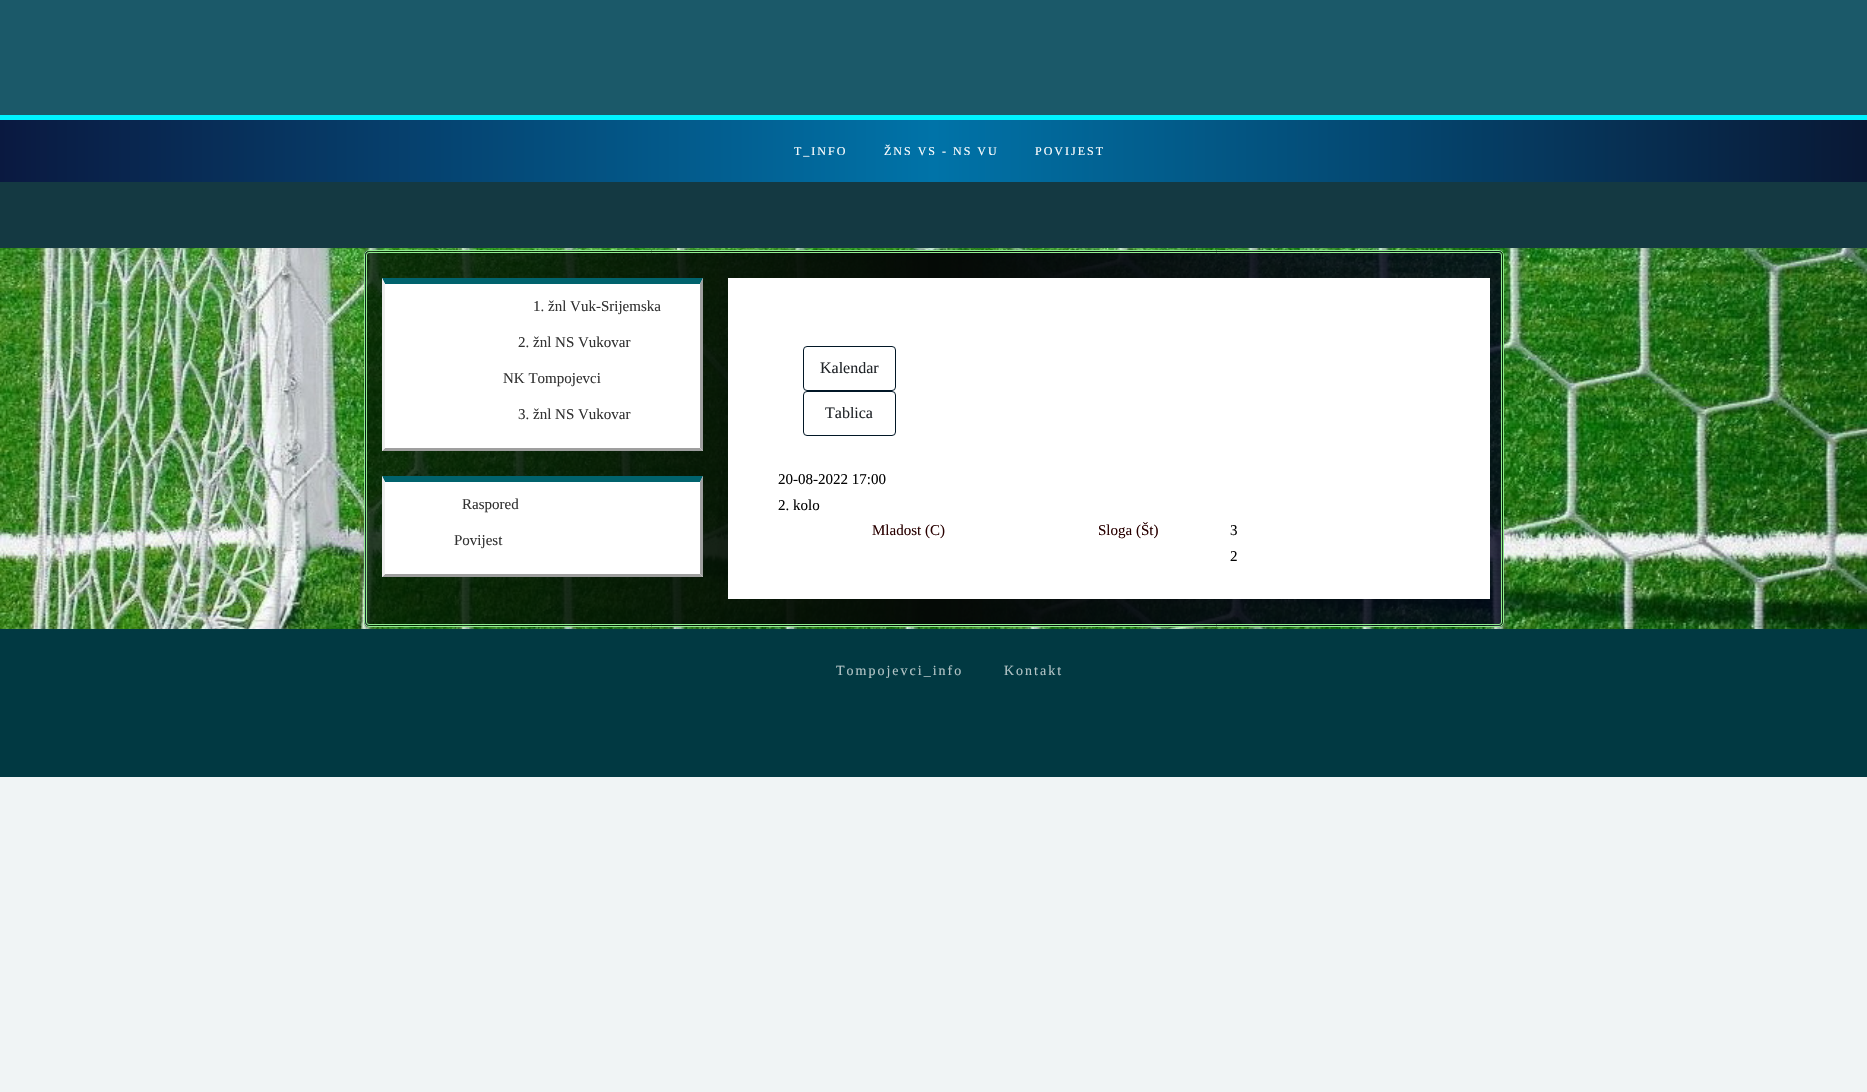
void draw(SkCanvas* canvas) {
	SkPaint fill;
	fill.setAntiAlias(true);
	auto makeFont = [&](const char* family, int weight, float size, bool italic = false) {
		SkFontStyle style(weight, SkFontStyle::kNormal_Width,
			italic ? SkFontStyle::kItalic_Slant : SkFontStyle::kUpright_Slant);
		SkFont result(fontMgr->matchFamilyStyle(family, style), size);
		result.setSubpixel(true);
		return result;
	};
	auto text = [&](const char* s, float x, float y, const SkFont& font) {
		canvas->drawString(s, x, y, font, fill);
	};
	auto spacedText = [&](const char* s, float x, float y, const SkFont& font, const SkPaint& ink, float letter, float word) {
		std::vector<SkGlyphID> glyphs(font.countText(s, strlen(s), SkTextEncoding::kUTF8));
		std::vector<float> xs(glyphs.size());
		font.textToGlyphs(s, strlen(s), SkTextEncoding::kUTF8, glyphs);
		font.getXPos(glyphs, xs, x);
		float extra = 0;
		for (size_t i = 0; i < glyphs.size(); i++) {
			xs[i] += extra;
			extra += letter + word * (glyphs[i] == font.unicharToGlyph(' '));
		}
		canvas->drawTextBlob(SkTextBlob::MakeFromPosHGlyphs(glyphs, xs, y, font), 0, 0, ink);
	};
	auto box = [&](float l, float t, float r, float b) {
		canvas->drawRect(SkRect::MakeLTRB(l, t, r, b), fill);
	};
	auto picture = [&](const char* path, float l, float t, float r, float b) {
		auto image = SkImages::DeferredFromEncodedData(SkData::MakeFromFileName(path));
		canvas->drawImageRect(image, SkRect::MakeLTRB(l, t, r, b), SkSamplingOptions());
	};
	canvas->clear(0xFFF0F4F5);
	fill.setColor(0xFF1B5969);
	box(0, 0, 1867, 115);
	{
		const SkColor colors[] = {0xFF0A1940, 0xFF0073A8, 0xFF091835};
		const float stops[] = {0, 0.5f, 1};
		const SkPoint ends[] = {{0, 151}, {1867, 151}};
		fill.setShader(SkGradientShader::MakeLinear(ends, colors, stops, 3, SkTileMode::kClamp));
		fill.setAlpha(255);
	}
	box(0, 120, 1867, 182);
	fill.setShader(nullptr);
	fill.setColor(0xFF00F2FF);
	box(0, 115, 1867, 120);
	fill.setColor(0xFF143942);
	box(0, 182, 1867, 248);
	picture("image0.png", 0, 248, 1867, 629);
	fill.setStyle(SkPaint::kStroke_Style);
	fill.setStrokeWidth(1);
	fill.setColor(0xFF90EE90);
	canvas->drawRoundRect(SkRect::MakeLTRB(364.5f, 250.5f, 1503.5f, 626.5f), 4.5f, 4.5f, fill);
	canvas->drawRoundRect(SkRect::MakeLTRB(366.5f, 252.5f, 1501.5f, 624.5f), 2.5f, 2.5f, fill);
	fill.setStyle(SkPaint::kFill_Style);
	fill.setColor(0xFFFFFFFF);
	box(382, 278, 703, 451);
	fill.setColor(0xFF00636D);
	canvas->drawPath(SkPathBuilder().moveTo(382, 278).lineTo(703, 278).lineTo(700, 284).lineTo(385, 284).close().detach(), fill);
	fill.setColor(0xFF9F9F9F);
	canvas->drawPath(SkPathBuilder().moveTo(703, 278).lineTo(703, 451).lineTo(700, 448).lineTo(700, 284).close().detach(), fill);
	canvas->drawPath(SkPathBuilder().moveTo(703, 451).lineTo(382, 451).lineTo(385, 448).lineTo(700, 448).close().detach(), fill);
	fill.setColor(0xFFEEEEEE);
	canvas->drawPath(SkPathBuilder().moveTo(382, 451).lineTo(382, 278).lineTo(385, 284).lineTo(385, 448).close().detach(), fill);
	fill.setColor(0xFFFFFFFF);
	box(382, 476, 703, 577);
	fill.setColor(0xFF00636D);
	canvas->drawPath(SkPathBuilder().moveTo(382, 476).lineTo(703, 476).lineTo(700, 482).lineTo(385, 482).close().detach(), fill);
	fill.setColor(0xFF9F9F9F);
	canvas->drawPath(SkPathBuilder().moveTo(703, 476).lineTo(703, 577).lineTo(700, 574).lineTo(700, 482).close().detach(), fill);
	canvas->drawPath(SkPathBuilder().moveTo(703, 577).lineTo(382, 577).lineTo(385, 574).lineTo(700, 574).close().detach(), fill);
	fill.setColor(0xFFEEEEEE);
	canvas->drawPath(SkPathBuilder().moveTo(382, 577).lineTo(382, 476).lineTo(385, 482).lineTo(385, 574).close().detach(), fill);
	fill.setColor(0xFFFFFFFF);
	box(728, 278, 1490, 599);
	fill.setStyle(SkPaint::kStroke_Style);
	fill.setColor(0xFF011726);
	canvas->drawRoundRect(SkRect::MakeLTRB(803.5f, 346.5f, 895.5f, 390.5f), 3.5f, 3.5f, fill);
	canvas->drawRoundRect(SkRect::MakeLTRB(803.5f, 391.5f, 895.5f, 435.5f), 3.5f, 3.5f, fill);
	fill.setStyle(SkPaint::kFill_Style);
	fill.setColor(0xFF013942);
	box(0, 629, 1867, 777);
	auto font1 = makeFont("Liberation Serif", 400, 12);
	fill.setColor(0xFFFFFFFF);
	spacedText("T_INFO", 794, 155, font1, fill, 2, 0);
	spacedText("ŽNS VS - NS VU", 884, 155, font1, fill, 2, 0);
	spacedText("POVIJEST", 1035, 155, font1, fill, 2, 0);
	auto font2 = makeFont("Liberation Serif", 400, 15);
	fill.setColor(0xFF333333);
	text("1. žnl Vuk-Srijemska", 533, 311, font2);
	text("2. žnl NS Vukovar", 518, 347, font2);
	text("NK Tompojevci", 503, 383, font2);
	text("3. žnl NS Vukovar", 518, 419, font2);
	text("Raspored", 462, 509, font2);
	text("Povijest", 454, 545, font2);
	auto font3 = makeFont("Liberation Serif", 400, 16);
	fill.setColor(0xFF22262A);
	text("Kalendar", 820, 373, font3);
	text("Tablica", 825, 418, font3);
	fill.setColor(0xFF050505);
	text("20-08-2022 17:00", 778, 484, font2);
	text("2. kolo", 778, 510, font2);
	fill.setColor(0xFF290000);
	text("Mladost (C)", 872, 535, font2);
	text("Sloga (Št)", 1098, 535, font2);
	fill.setColor(0xFF050505);
	text("3", 1230, 535, font2);
	text("2", 1230, 561, font2);
	auto font4 = makeFont("Liberation Serif", 400, 14);
	fill.setColor(0xFFB3C4C6);
	spacedText("Tompojevci_info", 836, 675, font4, fill, 2, 0);
	spacedText("Kontakt", 1004, 675, font4, fill, 2, 0);
}
